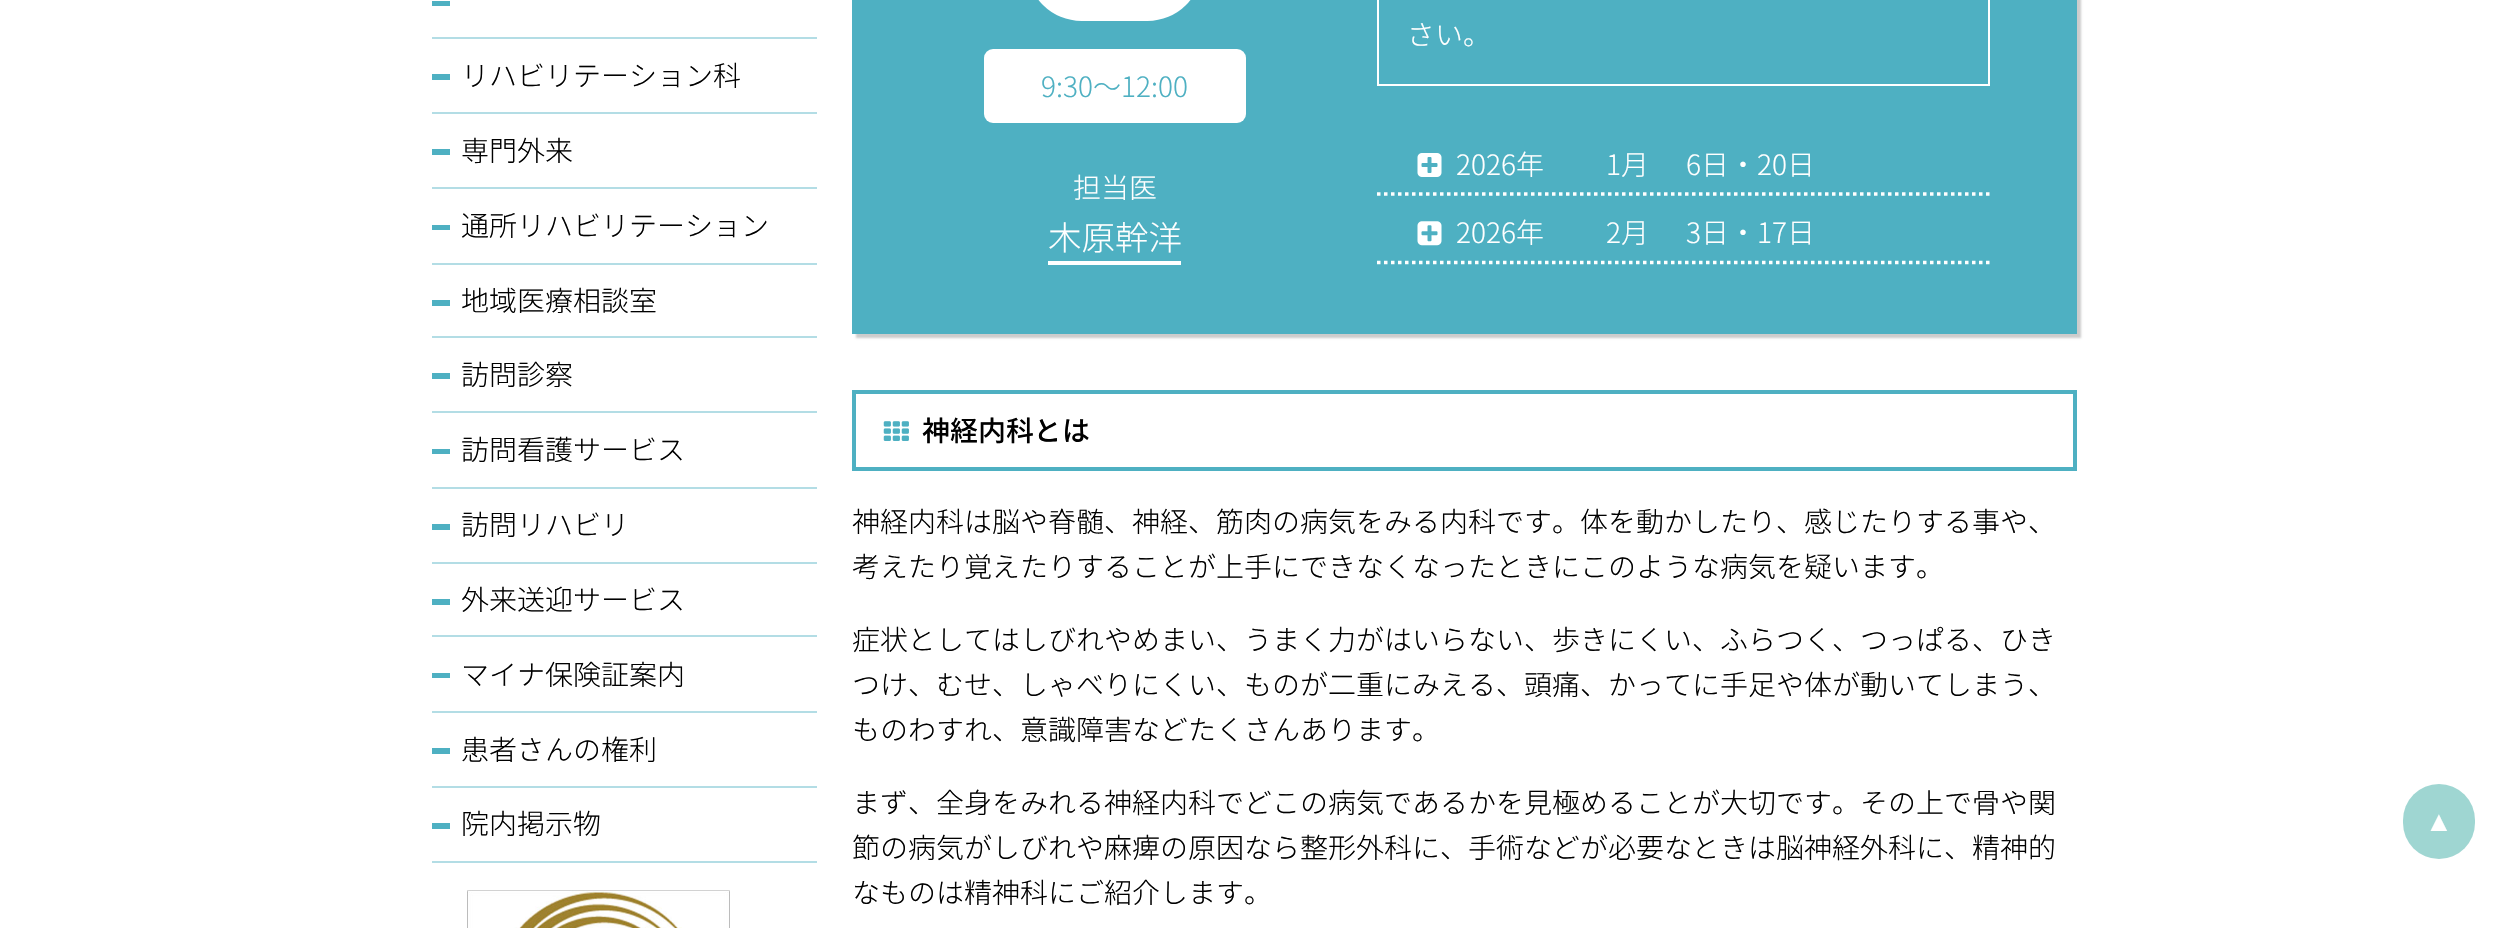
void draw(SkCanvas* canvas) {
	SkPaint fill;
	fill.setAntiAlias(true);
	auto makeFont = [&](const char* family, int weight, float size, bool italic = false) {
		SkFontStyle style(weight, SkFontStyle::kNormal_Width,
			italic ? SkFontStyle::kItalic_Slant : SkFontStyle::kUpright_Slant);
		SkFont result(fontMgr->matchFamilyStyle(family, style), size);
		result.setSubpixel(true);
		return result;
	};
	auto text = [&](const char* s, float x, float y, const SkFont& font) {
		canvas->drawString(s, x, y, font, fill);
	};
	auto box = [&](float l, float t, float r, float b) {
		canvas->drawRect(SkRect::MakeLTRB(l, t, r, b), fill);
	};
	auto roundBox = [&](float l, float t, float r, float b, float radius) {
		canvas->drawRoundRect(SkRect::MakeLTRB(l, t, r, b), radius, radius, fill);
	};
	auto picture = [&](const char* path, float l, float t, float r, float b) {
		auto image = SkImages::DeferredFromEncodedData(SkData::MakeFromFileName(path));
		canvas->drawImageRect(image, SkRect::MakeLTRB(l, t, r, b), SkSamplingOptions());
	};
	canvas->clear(0xFFFFFFFF);
	fill.setColor(0xFF4EB0C2);
	box(432, 1, 450, 6);
	fill.setColor(0xFFB3DDE5);
	box(432, 37, 817, 39);
	fill.setColor(0xFF4EB0C2);
	box(432, 74, 450, 80);
	fill.setColor(0xFFB3DDE5);
	box(432, 112, 817, 114);
	fill.setColor(0xFF4EB0C2);
	box(432, 149, 450, 155);
	fill.setColor(0xFFB3DDE5);
	box(432, 187, 817, 189);
	fill.setColor(0xFF4EB0C2);
	box(432, 225, 450, 230);
	fill.setColor(0xFFB3DDE5);
	box(432, 263, 817, 265);
	fill.setColor(0xFF4EB0C2);
	box(432, 300, 450, 306);
	fill.setColor(0xFFB3DDE5);
	box(432, 336, 817, 338);
	fill.setColor(0xFF4EB0C2);
	box(432, 373, 450, 379);
	fill.setColor(0xFFB3DDE5);
	box(432, 411, 817, 413);
	fill.setColor(0xFF4EB0C2);
	box(432, 449, 450, 454);
	fill.setColor(0xFFB3DDE5);
	box(432, 487, 817, 489);
	fill.setColor(0xFF4EB0C2);
	box(432, 524, 450, 530);
	fill.setColor(0xFFB3DDE5);
	box(432, 562, 817, 564);
	fill.setColor(0xFF4EB0C2);
	box(432, 599, 450, 605);
	fill.setColor(0xFFB3DDE5);
	box(432, 635, 817, 637);
	fill.setColor(0xFF4EB0C2);
	box(432, 673, 450, 678);
	fill.setColor(0xFFB3DDE5);
	box(432, 711, 817, 713);
	fill.setColor(0xFF4EB0C2);
	box(432, 748, 450, 754);
	fill.setColor(0xFFB3DDE5);
	box(432, 786, 817, 788);
	box(432, 861, 817, 863);
	fill.setColor(0xFF4EB0C2);
	box(432, 823, 450, 829);
	picture("image0.png", 467, 890, 730, 928);
	fill.setColor(0xFFCCCCCC);
	fill.setMaskFilter(SkMaskFilter::MakeBlur(kNormal_SkBlurStyle, 1));
	canvas->drawRect(SkRect::MakeLTRB(856, -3, 2081, 338), fill);
	fill.setMaskFilter(nullptr);
	fill.setColor(0xFF4EB0C2);
	box(852, 0, 2077, 334);
	fill.setColor(0xFFFFFFFF);
	roundBox(1027, -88, 1202, 21, 87.5f);
	roundBox(984, 49, 1246, 123, 9);
	box(1048, 261, 1181, 265);
	fill.setStyle(SkPaint::kStroke_Style);
	fill.setStrokeWidth(2);
	canvas->drawRect(SkRect::MakeLTRB(1378, -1, 1989, 85), fill);
	fill.setStrokeWidth(3.5f);
	fill.setPathEffect(SkDashPathEffect::Make({{3.5f, 3.5f}}, 0));
	canvas->drawPath(SkPathBuilder().moveTo(1377, 194).lineTo(1990, 194).detach(), fill);
	fill.setPathEffect(nullptr);
	picture("image1.png", 1417, 153, 1442, 177);
	fill.setPathEffect(SkDashPathEffect::Make({{3.5f, 3.5f}}, 0));
	canvas->drawPath(SkPathBuilder().moveTo(1377, 262.5f).lineTo(1990, 262.5f).detach(), fill);
	fill.setPathEffect(nullptr);
	picture("image2.png", 1417, 221, 1442, 246);
	fill.setStrokeWidth(4);
	fill.setColor(0xFF4EB0C2);
	canvas->drawRect(SkRect::MakeLTRB(854, 392, 2075, 469), fill);
	picture("image3.png", 883, 421, 909, 441);
	fill.setStyle(SkPaint::kFill_Style);
	fill.setColor(0xFF9FD6D2);
	roundBox(2403, 784, 2475, 859, 36);
	auto font1 = makeFont("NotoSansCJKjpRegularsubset", 400, 28);
	fill.setColor(0xFF000000);
	text("リハビリテーション科", 461, 86, font1);
	text("専門外来", 461, 161, font1);
	text("通所リハビリテーション", 461, 236, font1);
	text("地域医療相談室", 461, 311, font1);
	text("訪問診察", 461, 385, font1);
	text("訪問看護サービス", 461, 460, font1);
	text("訪問リハビリ", 461, 535, font1);
	text("外来送迎サービス", 461, 610, font1);
	text("マイナ保険証案内", 461, 685, font1);
	text("患者さんの権利", 461, 760, font1);
	text("院内掲示物", 461, 834, font1);
	fill.setColor(0xFF4EB0C2);
	text("9:30～12:00", 1041, 97, font1);
	fill.setColor(0xFFFFFFFF);
	text("担当医", 1073, 198, font1);
	auto font2 = makeFont("NotoSansCJKjpRegularsubset", 400, 33.5f);
	text("木原幹洋", 1048, 250, font2);
	text("さい。", 1407, 45, font1);
	text("2026年", 1456, 175, font1);
	text("1月", 1606, 175, font1);
	text("6日・20日", 1686, 175, font1);
	text("2026年", 1456, 243, font1);
	text("2月", 1606, 243, font1);
	text("3日・17日", 1686, 243, font1);
	auto font3 = makeFont("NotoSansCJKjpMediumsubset", 500, 28);
	fill.setColor(0xFF000000);
	text("神経内科とは", 922, 441, font3);
	text("神経内科は脳や脊髄、神経、筋肉の病気をみる内科です。体を動かしたり、感じたりする事や、", 852, 532, font1);
	text("考えたり覚えたりすることが上手にできなくなったときにこのような病気を疑います。", 852, 577, font1);
	text("症状としてはしびれやめまい、うまく力がはいらない、歩きにくい、ふらつく、つっぱる、ひき", 852, 650, font1);
	text("つけ、むせ、しゃべりにくい、ものが二重にみえる、頭痛、かってに手足や体が動いてしまう、", 852, 695, font1);
	text("ものわすれ、意識障害などたくさんあります。", 852, 740, font1);
	text("まず、全身をみれる神経内科でどこの病気であるかを見極めることが大切です。その上で骨や関", 852, 813, font1);
	text("節の病気がしびれや麻痺の原因なら整形外科に、手術などが必要なときは脳神経外科に、精神的", 852, 858, font1);
	text("なものは精神科にご紹介します。", 852, 903, font1);
	auto font4 = makeFont("Liberation Sans", 700, 28);
	fill.setColor(0xFFFFFFFF);
	text("▲", 2425, 831, font4);
}
